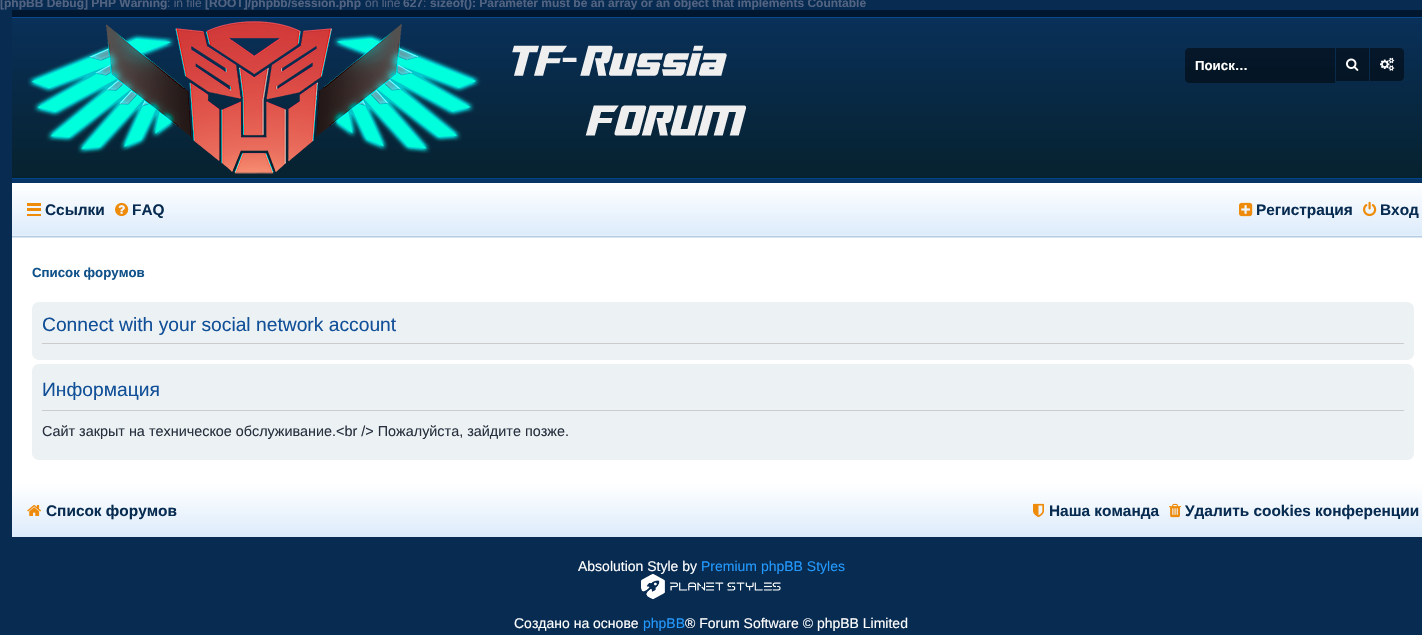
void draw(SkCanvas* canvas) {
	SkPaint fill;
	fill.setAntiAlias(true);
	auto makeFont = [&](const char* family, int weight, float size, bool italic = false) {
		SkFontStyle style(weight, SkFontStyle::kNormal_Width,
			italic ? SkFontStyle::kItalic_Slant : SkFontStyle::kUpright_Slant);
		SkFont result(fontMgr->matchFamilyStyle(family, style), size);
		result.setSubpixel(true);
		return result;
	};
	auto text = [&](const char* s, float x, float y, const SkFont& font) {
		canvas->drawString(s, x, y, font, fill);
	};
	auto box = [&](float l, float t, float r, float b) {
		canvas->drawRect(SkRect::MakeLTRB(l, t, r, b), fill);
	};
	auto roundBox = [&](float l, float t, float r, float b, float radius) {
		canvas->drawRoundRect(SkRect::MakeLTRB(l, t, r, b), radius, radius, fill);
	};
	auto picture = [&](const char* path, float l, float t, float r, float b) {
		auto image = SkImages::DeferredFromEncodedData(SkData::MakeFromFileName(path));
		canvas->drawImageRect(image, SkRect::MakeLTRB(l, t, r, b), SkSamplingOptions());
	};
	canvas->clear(0xFF082B51);
	fill.setColor(0xFFFFFFFF);
	box(12, 238, 1422, 484);
	fill.setColor(0xFF01172F);
	box(12, 10, 1422, 17);
	{
		const SkColor colors[] = {0xFF07222F, 0xFF093059};
		const float stops[] = {0, 1};
		const SkPoint ends[] = {{723, 178}, {723, 18}};
		fill.setShader(SkGradientShader::MakeLinear(ends, colors, stops, 2, SkTileMode::kClamp));
		fill.setAlpha(255);
	}
	box(12, 18, 1422, 178);
	{
		const SkColor colors[] = {0xFF041118, 0xFF05182D};
		const float stops[] = {0, 1};
		const SkPoint ends[] = {{723, 178}, {723, 18}};
		fill.setShader(SkGradientShader::MakeLinear(ends, colors, stops, 2, SkTileMode::kClamp));
		fill.setAlpha(255);
	}
	box(1336, 48, 1369, 81);
	fill.setShader(nullptr);
	fill.setColor(0xFF0A498E);
	box(12, 17, 1422, 18);
	fill.setColor(0xFF004389);
	box(12, 178, 1422, 179);
	picture("image0.png", 27, 21, 746, 174);
	fill.setColor(0x80000000);
	canvas->drawPath(SkPathBuilder().moveTo(1189, 48).lineTo(1335, 48).lineTo(1335, 83).lineTo(1189, 83).cubicTo(1187, 83, 1185, 81, 1185, 79).lineTo(1185, 52).cubicTo(1185, 50, 1187, 48, 1189, 48).close().detach(), fill);
	picture("image1.png", 1346, 58, 1359, 71);
	canvas->drawPath(SkPathBuilder().moveTo(1370, 48).lineTo(1400, 48).cubicTo(1402, 48, 1404, 50, 1404, 52).lineTo(1404, 77).cubicTo(1404, 79, 1402, 81, 1400, 81).lineTo(1370, 81).close().detach(), fill);
	picture("image2.png", 1380, 57, 1395, 71);
	fill.setColor(0xFFD9E6F1);
	box(12, 237, 1422, 238);
	{
		const SkColor colors[] = {0xFFDCEBFB, 0xFFFFFFFF};
		const float stops[] = {0, 1};
		const SkPoint ends[] = {{723, 236}, {723, 183}};
		fill.setShader(SkGradientShader::MakeLinear(ends, colors, stops, 2, SkTileMode::kClamp));
		fill.setAlpha(255);
	}
	box(12, 183, 1422, 235);
	fill.setShader(nullptr);
	fill.setColor(0xFFE7F1FC);
	box(12, 235, 1422, 236);
	fill.setColor(0xFF063465);
	box(12, 179, 1422, 183);
	fill.setColor(0xFFB3CCE4);
	box(12, 236, 1422, 237);
	fill.setColor(0xFFEE8B0A);
	box(27, 203, 41, 206);
	box(27, 208, 41, 211);
	box(27, 214, 41, 216);
	picture("image3.png", 115, 202, 129, 217);
	picture("image4.png", 1239, 202, 1253, 217);
	picture("image5.png", 1363, 201, 1377, 217);
	fill.setColor(0xFFECF1F3);
	roundBox(32, 302, 1414, 360, 7);
	fill.setColor(0xFFCCCCCC);
	box(42, 343, 1404, 344);
	fill.setColor(0xFFECF1F3);
	roundBox(32, 364, 1414, 460, 7);
	fill.setColor(0xFFCCCCCC);
	box(42, 410, 1404, 411);
	{
		const SkColor colors[] = {0xFFDCEBFB, 0xFFFFFFFF};
		const float stops[] = {0, 1};
		const SkPoint ends[] = {{723, 537}, {723, 484}};
		fill.setShader(SkGradientShader::MakeLinear(ends, colors, stops, 2, SkTileMode::kClamp));
		fill.setAlpha(255);
	}
	box(12, 484, 1422, 537);
	picture("image6.png", 27, 505, 41, 516);
	picture("image7.png", 1033, 503, 1044, 518);
	picture("image8.png", 1169, 503, 1182, 518);
	picture("image9.png", 641, 574, 781, 599);
	auto font1 = makeFont("Liberation Sans", 700, 12);
	fill.setShader(nullptr);
	fill.setColor(0xFF536482);
	text("[phpBB Debug] PHP Warning", 0, 7, font1);
	auto font2 = makeFont("Liberation Sans", 400, 12);
	text(": in file", 167, 7, font2);
	text("[ROOT]/phpbb/session.php", 205, 7, font1);
	text("on line", 365, 7, font2);
	text("627", 403, 7, font1);
	text(":", 423, 7, font2);
	text("sizeof(): Parameter must be an array or an object that implements Countable", 430, 7, font1);
	auto font3 = makeFont("Liberation Sans", 700, 13.25f);
	fill.setColor(0xFFFFFFFF);
	text("Поиск…", 1195, 70, font3);
	auto font4 = makeFont("Liberation Sans", 700, 15.4f);
	fill.setColor(0xFF082C51);
	text("Ссылки", 45, 215, font4);
	text("FAQ", 132, 215, font4);
	text("Регистрация", 1256, 215, font4);
	text("Вход", 1380, 215, font4);
	fill.setColor(0xFF105289);
	text("Список форумов", 32, 277, font3);
	auto font5 = makeFont("Liberation Sans", 400, 19.25f);
	fill.setColor(0xFF115098);
	text("Connect with your social network account", 42, 331, font5);
	text("Информация", 42, 396, font5);
	auto font6 = makeFont("Liberation Sans", 400, 14.4f);
	fill.setColor(0xFF28313F);
	text("Сайт закрыт на техническое обслуживание.<br /> Пожалуйста, зайдите позже.", 42, 436, font6);
	fill.setColor(0xFF082C51);
	text("Список форумов", 46, 516, font4);
	text("Наша команда", 1049, 516, font4);
	text("Удалить cookies конференции", 1185, 516, font4);
	auto font7 = makeFont("Liberation Sans", 400, 14);
	fill.setColor(0xFFFFFFFF);
	text("Absolution Style by", 578, 571, font7);
	fill.setColor(0xFF239AFF);
	text("Premium phpBB Styles", 701, 571, font7);
	fill.setColor(0xFFFFFFFF);
	text("Создано на основе", 514, 628, font7);
	fill.setColor(0xFF239AFF);
	text("phpBB", 643, 628, font7);
	fill.setColor(0xFFFFFFFF);
	text("® Forum Software © phpBB Limited", 685, 628, font7);
}
